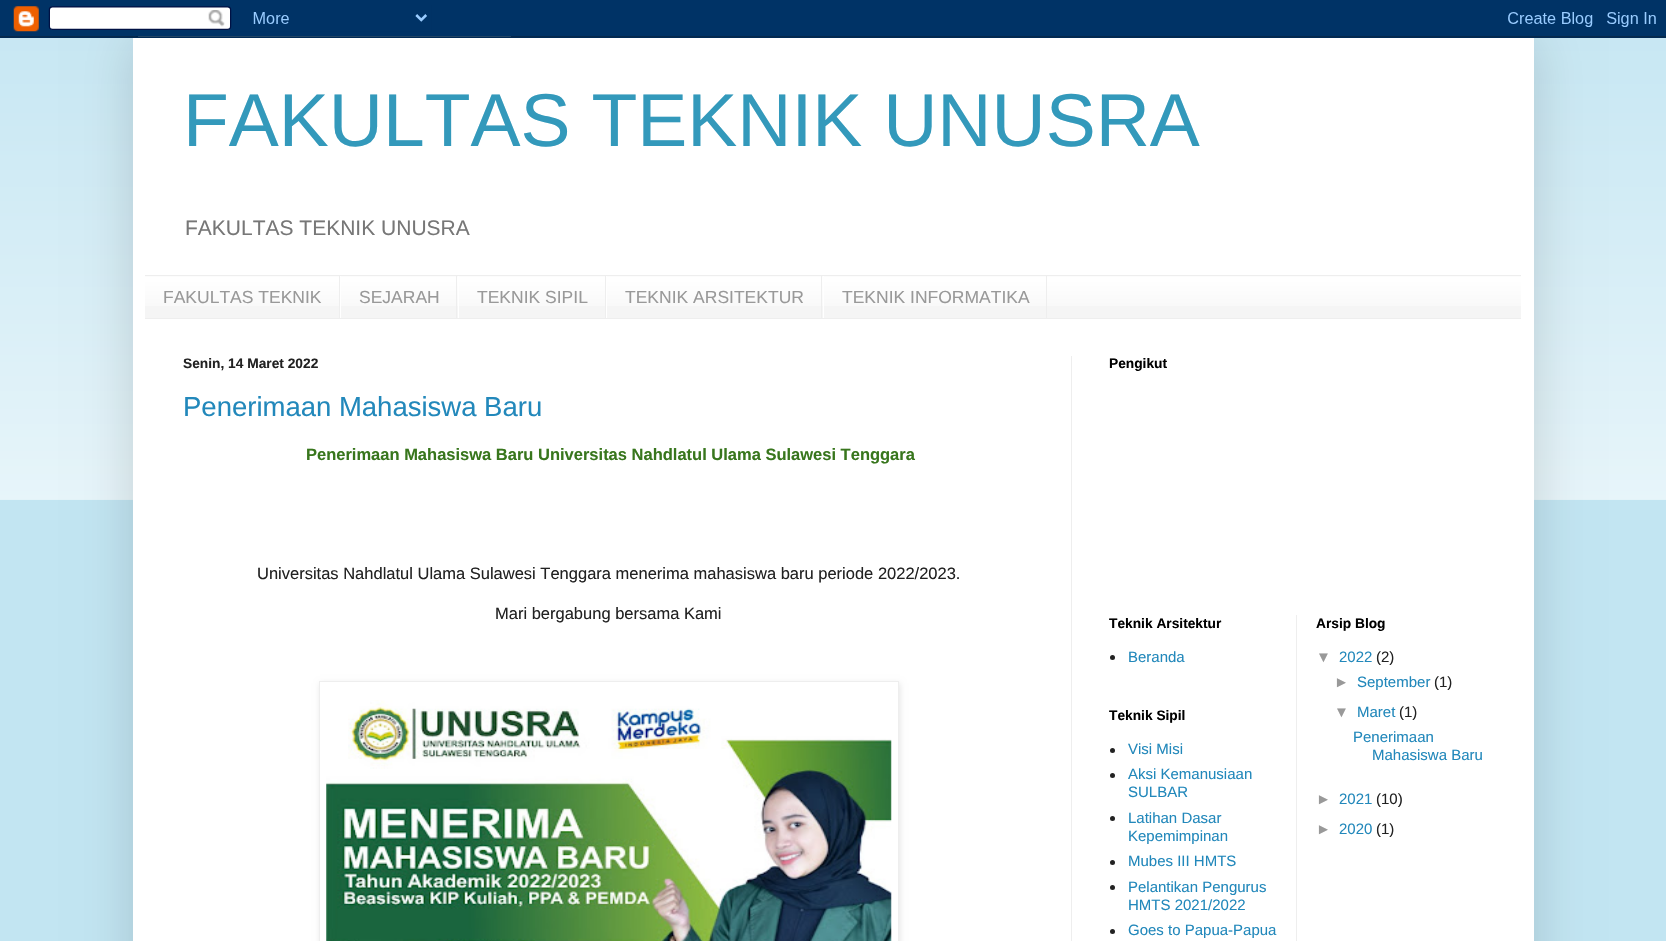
void draw(SkCanvas* canvas) {
	SkPaint fill;
	fill.setAntiAlias(true);
	auto makeFont = [&](const char* family, int weight, float size, bool italic = false) {
		SkFontStyle style(weight, SkFontStyle::kNormal_Width,
			italic ? SkFontStyle::kItalic_Slant : SkFontStyle::kUpright_Slant);
		SkFont result(fontMgr->matchFamilyStyle(family, style), size);
		result.setSubpixel(true);
		return result;
	};
	auto text = [&](const char* s, float x, float y, const SkFont& font) {
		canvas->drawString(s, x, y, font, fill);
	};
	auto box = [&](float l, float t, float r, float b) {
		canvas->drawRect(SkRect::MakeLTRB(l, t, r, b), fill);
	};
	auto picture = [&](const char* path, float l, float t, float r, float b) {
		auto image = SkImages::DeferredFromEncodedData(SkData::MakeFromFileName(path));
		canvas->drawImageRect(image, SkRect::MakeLTRB(l, t, r, b), SkSamplingOptions());
	};
	canvas->clear(0xFFC2E5F2);
	picture("image1.png", 0, 36, 1666, 500);
	fill.setColor(0x26000000);
	fill.setMaskFilter(SkMaskFilter::MakeBlur(kNormal_SkBlurStyle, 25));
	canvas->drawRect(SkRect::MakeLTRB(133, 38, 1534, 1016), fill);
	fill.setMaskFilter(nullptr);
	picture("image0.png", 0, 0, 1666, 38);
	fill.setColor(0xFFFFFFFF);
	box(133, 38, 1534, 941);
	fill.setColor(0xFFF5F5F5);
	box(145, 276, 1521, 318);
	picture("image2.png", 145, 276, 1521, 306);
	fill.setColor(0xFFEEEEEE);
	box(145, 275, 1521, 276);
	box(145, 318, 1521, 319);
	box(339, 276, 340, 318);
	box(456, 276, 457, 318);
	fill.setColor(0xFFFFFFFF);
	box(340, 276, 341, 318);
	fill.setColor(0xFFEEEEEE);
	box(605, 276, 606, 318);
	fill.setColor(0xFFFFFFFF);
	box(458, 276, 459, 318);
	fill.setColor(0xFFEEEEEE);
	box(821, 276, 822, 318);
	fill.setColor(0xFFFFFFFF);
	box(606, 276, 607, 318);
	fill.setColor(0xFFEEEEEE);
	box(1046, 276, 1047, 318);
	fill.setColor(0xFFFFFFFF);
	box(823, 276, 824, 318);
	fill.setColor(0xFFEEEEEE);
	box(1071, 356, 1072, 941);
	fill.setColor(0x1A000000);
	fill.setMaskFilter(SkMaskFilter::MakeBlur(kNormal_SkBlurStyle, 3));
	canvas->drawRect(SkRect::MakeLTRB(320, 683, 900, 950), fill);
	fill.setMaskFilter(nullptr);
	fill.setColor(0xFFFFFFFF);
	canvas->drawRect(SkRect::MakeLTRB(319.5f, 681.5f, 898.5f, 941.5f), fill);
	fill.setStyle(SkPaint::kStroke_Style);
	fill.setStrokeWidth(1);
	fill.setColor(0xFFEEEEEE);
	canvas->drawRect(SkRect::MakeLTRB(319.5f, 681.5f, 898.5f, 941.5f), fill);
	picture("image3.png", 326, 700, 892, 941);
	fill.setStyle(SkPaint::kFill_Style);
	fill.setColor(0xFF222222);
	canvas->drawCircle(1112.5f, 657.5f, 2.5f, fill);
	canvas->drawCircle(1112.5f, 750.5f, 2.5f, fill);
	canvas->drawCircle(1112.5f, 775.5f, 2.5f, fill);
	canvas->drawCircle(1112.5f, 818.5f, 2.5f, fill);
	canvas->drawCircle(1112.5f, 862.5f, 2.5f, fill);
	canvas->drawCircle(1112.5f, 887.5f, 2.5f, fill);
	canvas->drawCircle(1112.5f, 931.5f, 2.5f, fill);
	fill.setColor(0xFFEEEEEE);
	box(1296, 615, 1297, 941);
	auto font1 = makeFont("Liberation Sans", 400, 75);
	fill.setColor(0xFF3399BB);
	text("FAKULTAS TEKNIK UNUSRA", 183, 146, font1);
	auto font2 = makeFont("Liberation Sans", 400, 21);
	fill.setColor(0xFF777777);
	text("FAKULTAS TEKNIK UNUSRA", 185, 235, font2);
	auto font3 = makeFont("Liberation Sans", 400, 17.5f);
	fill.setColor(0xFF999999);
	text("FAKULTAS TEKNIK", 163, 303, font3);
	text("SEJARAH", 359, 303, font3);
	text("TEKNIK SIPIL", 477, 303, font3);
	text("TEKNIK ARSITEKTUR", 625, 303, font3);
	text("TEKNIK INFORMATIKA", 842, 303, font3);
	auto font4 = makeFont("Liberation Sans", 700, 13.75f);
	fill.setColor(0xFF222222);
	text("Senin, 14 Maret 2022", 183, 368, font4);
	auto font5 = makeFont("Liberation Sans", 400, 27.5f);
	fill.setColor(0xFF2288BB);
	text("Penerimaan Mahasiswa Baru", 183, 416, font5);
	auto font6 = makeFont("Liberation Sans", 700, 16.5f);
	fill.setColor(0xFF38761D);
	text("Penerimaan Mahasiswa Baru Universitas Nahdlatul Ulama Sulawesi Tenggara", 306, 460, font6);
	auto font7 = makeFont("Liberation Sans", 400, 16.5f);
	fill.setColor(0xFF222222);
	text("Universitas Nahdlatul Ulama Sulawesi Tenggara menerima mahasiswa baru periode 2022/2023.", 257, 579, font7);
	text("Mari bergabung bersama Kami", 495, 619, font7);
	fill.setColor(0xFF000000);
	text("Pengikut", 1109, 368, font4);
	text("Teknik Arsitektur", 1109, 628, font4);
	auto font8 = makeFont("Liberation Sans", 400, 15);
	fill.setColor(0xFF2288BB);
	text("Beranda", 1128, 662, font8);
	fill.setColor(0xFF000000);
	text("Teknik Sipil", 1109, 720, font4);
	fill.setColor(0xFF2288BB);
	text("Visi Misi", 1128, 754, font8);
	text("Aksi Kemanusiaan", 1128, 779, font8);
	text("SULBAR", 1128, 797, font8);
	text("Latihan Dasar", 1128, 823, font8);
	text("Kepemimpinan", 1128, 841, font8);
	text("Mubes III HMTS", 1128, 866, font8);
	text("Pelantikan Pengurus", 1128, 892, font8);
	text("HMTS 2021/2022", 1128, 910, font8);
	text("Goes to Papua-Papua", 1128, 935, font8);
	fill.setColor(0xFF000000);
	text("Arsip Blog", 1316, 628, font4);
	fill.setColor(0xFF999999);
	text("▼", 1316, 662, font8);
	fill.setColor(0xFF2288BB);
	text("2022", 1339, 662, font8);
	fill.setColor(0xFF222222);
	text("(2)", 1376, 662, font8);
	fill.setColor(0xFF999999);
	text("►", 1334, 687, font8);
	fill.setColor(0xFF2288BB);
	text("September", 1357, 687, font8);
	fill.setColor(0xFF222222);
	text("(1)", 1434, 687, font8);
	fill.setColor(0xFF999999);
	text("▼", 1334, 717, font8);
	fill.setColor(0xFF2288BB);
	text("Maret", 1357, 717, font8);
	fill.setColor(0xFF222222);
	text("(1)", 1399, 717, font8);
	fill.setColor(0xFF2288BB);
	text("Penerimaan", 1353, 742, font8);
	text("Mahasiswa Baru", 1372, 760, font8);
	fill.setColor(0xFF999999);
	text("►", 1316, 804, font8);
	fill.setColor(0xFF2288BB);
	text("2021", 1339, 804, font8);
	fill.setColor(0xFF222222);
	text("(10)", 1376, 804, font8);
	fill.setColor(0xFF999999);
	text("►", 1316, 834, font8);
	fill.setColor(0xFF2288BB);
	text("2020", 1339, 834, font8);
	fill.setColor(0xFF222222);
	text("(1)", 1376, 834, font8);
}
